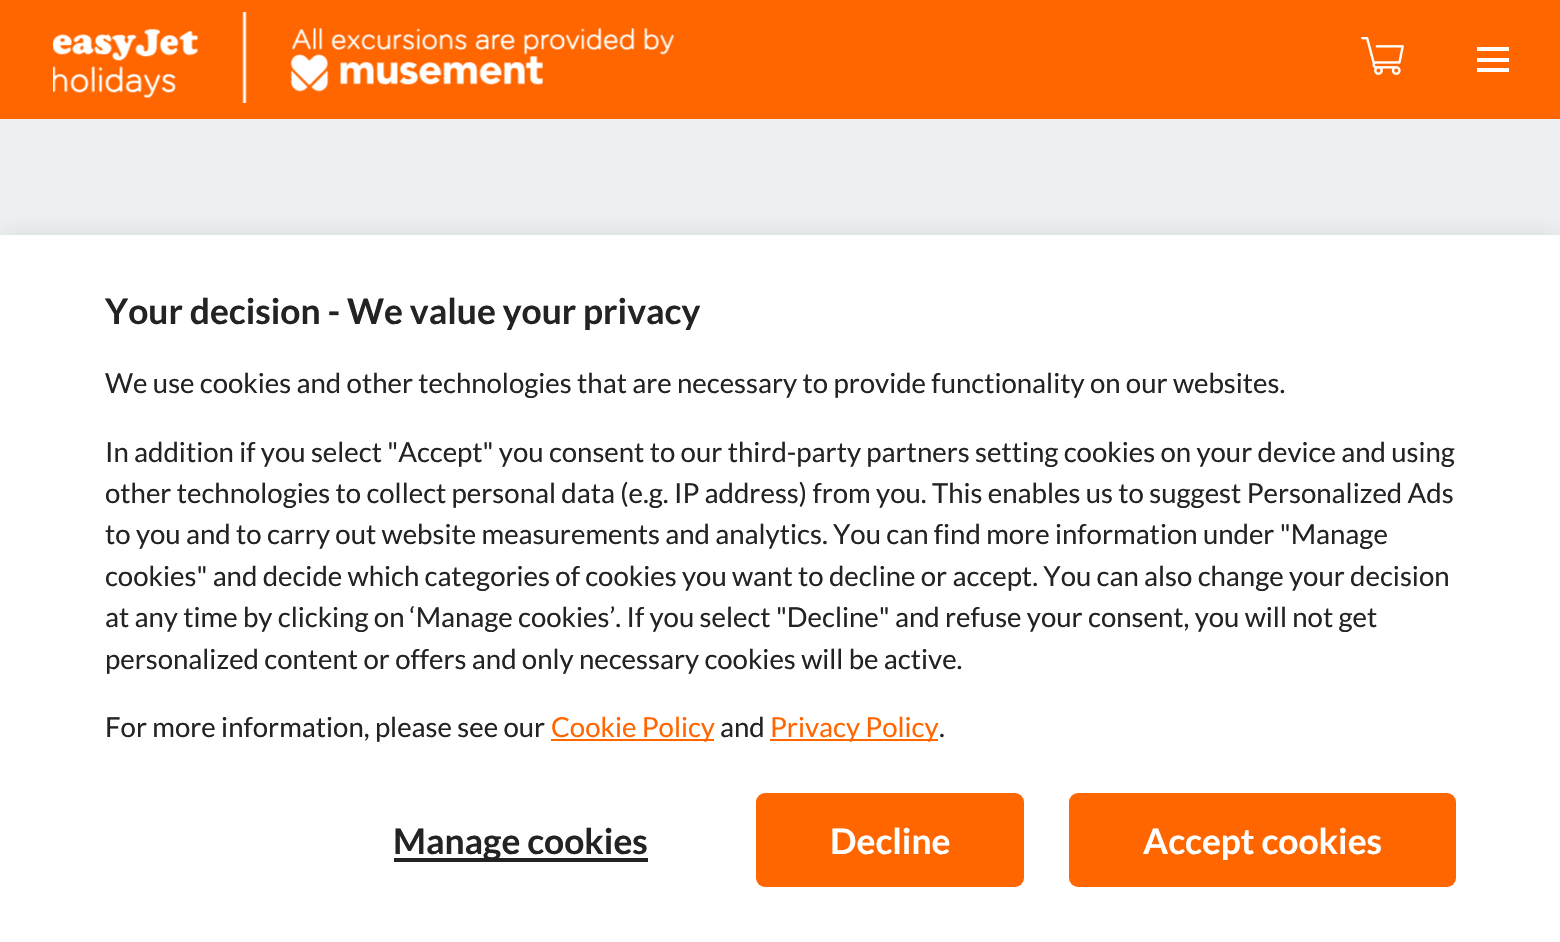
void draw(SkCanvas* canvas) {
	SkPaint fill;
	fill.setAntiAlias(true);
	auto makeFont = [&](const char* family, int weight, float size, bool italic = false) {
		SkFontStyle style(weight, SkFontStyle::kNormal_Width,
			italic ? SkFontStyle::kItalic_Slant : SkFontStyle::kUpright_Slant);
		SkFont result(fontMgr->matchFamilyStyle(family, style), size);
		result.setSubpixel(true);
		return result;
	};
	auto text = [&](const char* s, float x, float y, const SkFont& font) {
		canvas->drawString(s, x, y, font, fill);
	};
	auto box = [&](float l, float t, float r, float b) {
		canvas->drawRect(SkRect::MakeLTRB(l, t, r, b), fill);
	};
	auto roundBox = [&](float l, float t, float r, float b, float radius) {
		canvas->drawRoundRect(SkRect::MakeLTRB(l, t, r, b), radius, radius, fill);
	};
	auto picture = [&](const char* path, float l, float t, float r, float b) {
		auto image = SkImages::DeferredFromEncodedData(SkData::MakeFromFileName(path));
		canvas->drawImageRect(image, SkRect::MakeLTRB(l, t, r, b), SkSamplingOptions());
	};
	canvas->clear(0xFFEDF1F2);
	fill.setColor(0xFFFF6600);
	box(0, 0, 1560, 119);
	picture("image0.png", 53, 12, 674, 103);
	picture("image1.png", 1361, 37, 1404, 75);
	fill.setColor(0xFFFFFFFF);
	box(1477, 58, 1509, 62);
	box(1477, 47, 1509, 51);
	box(1477, 68, 1509, 72);
	fill.setColor(0x26232323);
	fill.setMaskFilter(SkMaskFilter::MakeBlur(kNormal_SkBlurStyle, 13));
	canvas->drawRect(SkRect::MakeLTRB(0, 238, 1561, 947), fill);
	fill.setMaskFilter(nullptr);
	fill.setColor(0xFFFFFFFF);
	box(0, 235, 1560, 942);
	fill.setColor(0xFFFF6600);
	box(551, 739, 714, 741);
	box(770, 739, 938, 741);
	fill.setColor(0xFF232323);
	box(394, 858, 648, 862);
	fill.setColor(0xFFFF6600);
	roundBox(756, 793, 1024, 887, 9);
	roundBox(1069, 793, 1456, 887, 9);
	auto font1 = makeFont("Lato", 700, 35.4f);
	fill.setColor(0xFF232323);
	text("Your decision - We value your privacy", 105, 324, font1);
	auto font2 = makeFont("Lato", 400, 27.55f);
	text("We use cookies and other technologies that are necessary to provide functionality on our websites.", 105, 393, font2);
	text("In addition if you select \"Accept\" you consent to our third-party partners setting cookies on your device and using", 105, 462, font2);
	text("other technologies to collect personal data (e.g. IP address) from you. This enables us to suggest Personalized Ads", 105, 503, font2);
	text("to you and to carry out website measurements and analytics. You can find more information under \"Manage", 105, 544, font2);
	text("cookies\" and decide which categories of cookies you want to decline or accept. You can also change your decision", 105, 586, font2);
	text("at any time by clicking on ‘Manage cookies’. If you select \"Decline\" and refuse your consent, you will not get", 105, 627, font2);
	text("personalized content or offers and only necessary cookies will be active.", 105, 669, font2);
	text("For more information, please see our", 105, 737, font2);
	fill.setColor(0xFFFF6600);
	text("Cookie Policy", 551, 737, font2);
	fill.setColor(0xFF232323);
	text("and", 720, 737, font2);
	fill.setColor(0xFFFF6600);
	text("Privacy Policy", 770, 737, font2);
	fill.setColor(0xFF232323);
	text(".", 939, 737, font2);
	text("Manage cookies", 393, 854, font1);
	fill.setColor(0xFFFFFFFF);
	text("Decline", 830, 854, font1);
	text("Accept cookies", 1143, 854, font1);
}
